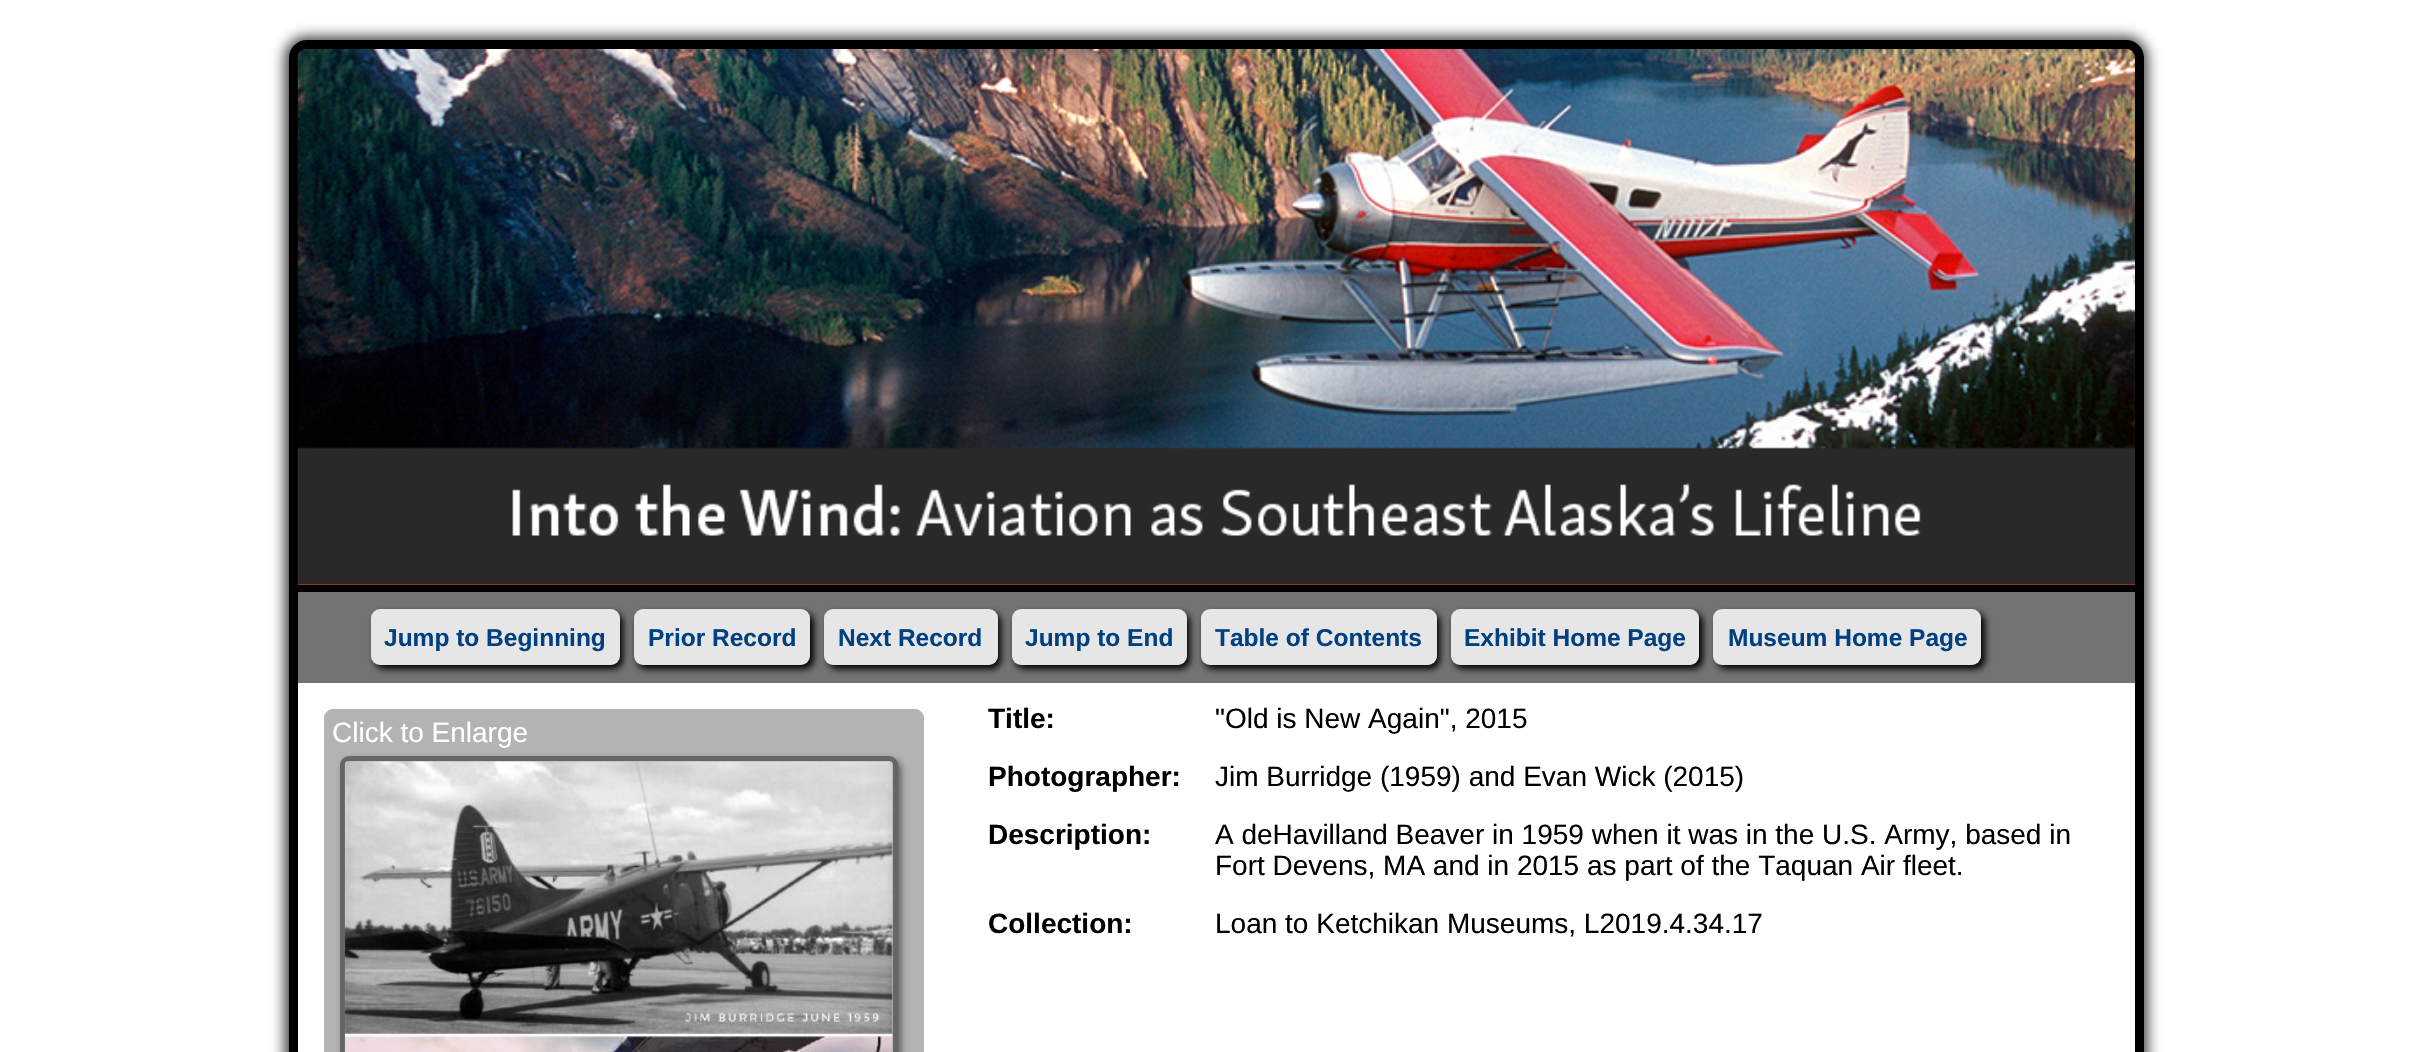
void draw(SkCanvas* canvas) {
	SkPaint fill;
	fill.setAntiAlias(true);
	auto makeFont = [&](const char* family, int weight, float size, bool italic = false) {
		SkFontStyle style(weight, SkFontStyle::kNormal_Width,
			italic ? SkFontStyle::kItalic_Slant : SkFontStyle::kUpright_Slant);
		SkFont result(fontMgr->matchFamilyStyle(family, style), size);
		result.setSubpixel(true);
		return result;
	};
	auto text = [&](const char* s, float x, float y, const SkFont& font) {
		canvas->drawString(s, x, y, font, fill);
	};
	auto box = [&](float l, float t, float r, float b) {
		canvas->drawRect(SkRect::MakeLTRB(l, t, r, b), fill);
	};
	auto roundBox = [&](float l, float t, float r, float b, float radius) {
		canvas->drawRoundRect(SkRect::MakeLTRB(l, t, r, b), radius, radius, fill);
	};
	auto picture = [&](const char* path, float l, float t, float r, float b) {
		auto image = SkImages::DeferredFromEncodedData(SkData::MakeFromFileName(path));
		canvas->drawImageRect(image, SkRect::MakeLTRB(l, t, r, b), SkSamplingOptions());
	};
	canvas->clear(0xFFFFFFFF);
	fill.setColor(0xFF333333);
	fill.setMaskFilter(SkMaskFilter::MakeBlur(kNormal_SkBlurStyle, 7));
	canvas->drawRoundRect(SkRect::MakeLTRB(285, 37, 2147, 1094), 21, 21, fill);
	fill.setMaskFilter(nullptr);
	fill.setColor(0xFF737373);
	canvas->drawRoundRect(SkRect::MakeLTRB(293.5f, 44.5f, 2139.5f, 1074.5f), 13.5f, 13.5f, fill);
	fill.setStyle(SkPaint::kStroke_Style);
	fill.setStrokeWidth(9);
	fill.setColor(0xFF000000);
	canvas->drawRoundRect(SkRect::MakeLTRB(293.5f, 44.5f, 2139.5f, 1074.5f), 13.5f, 13.5f, fill);
	fill.setStyle(SkPaint::kFill_Style);
	fill.setColor(0xFFB33D26);
	canvas->drawPath(SkPathBuilder().moveTo(307, 49).lineTo(2126, 49).cubicTo(2131, 49, 2135, 53, 2135, 58).lineTo(2135, 585).lineTo(298, 585).lineTo(298, 58).cubicTo(298, 53, 302, 49, 307, 49).close().detach(), fill);
	picture("image0.png", 297, 49, 2135, 585);
	fill.setColor(0xFF000000);
	box(298, 585, 2135, 592);
	fill.setMaskFilter(SkMaskFilter::MakeBlur(kNormal_SkBlurStyle, 3.5f));
	canvas->drawRoundRect(SkRect::MakeLTRB(375, 613, 623, 669), 9, 9, fill);
	fill.setMaskFilter(nullptr);
	fill.setColor(0xFFE6E6E6);
	roundBox(371, 609, 620, 665, 9);
	fill.setColor(0xFF000000);
	fill.setMaskFilter(SkMaskFilter::MakeBlur(kNormal_SkBlurStyle, 3.5f));
	canvas->drawRoundRect(SkRect::MakeLTRB(637, 613, 814, 669), 9, 9, fill);
	fill.setMaskFilter(nullptr);
	fill.setColor(0xFFE6E6E6);
	roundBox(634, 609, 810, 665, 9);
	fill.setColor(0xFF000000);
	fill.setMaskFilter(SkMaskFilter::MakeBlur(kNormal_SkBlurStyle, 3.5f));
	canvas->drawRoundRect(SkRect::MakeLTRB(828, 613, 1001, 669), 9, 9, fill);
	fill.setMaskFilter(nullptr);
	fill.setColor(0xFFE6E6E6);
	roundBox(824, 609, 998, 665, 9);
	fill.setColor(0xFF000000);
	fill.setMaskFilter(SkMaskFilter::MakeBlur(kNormal_SkBlurStyle, 3.5f));
	canvas->drawRoundRect(SkRect::MakeLTRB(1015, 613, 1190, 669), 9, 9, fill);
	fill.setMaskFilter(nullptr);
	fill.setColor(0xFFE6E6E6);
	roundBox(1012, 609, 1187, 665, 9);
	fill.setColor(0xFF000000);
	fill.setMaskFilter(SkMaskFilter::MakeBlur(kNormal_SkBlurStyle, 3.5f));
	canvas->drawRoundRect(SkRect::MakeLTRB(1204, 613, 1440, 669), 9, 9, fill);
	fill.setMaskFilter(nullptr);
	fill.setColor(0xFFE6E6E6);
	roundBox(1201, 609, 1437, 665, 9);
	fill.setColor(0xFF000000);
	fill.setMaskFilter(SkMaskFilter::MakeBlur(kNormal_SkBlurStyle, 3.5f));
	canvas->drawRoundRect(SkRect::MakeLTRB(1454, 613, 1703, 669), 9, 9, fill);
	fill.setMaskFilter(nullptr);
	fill.setColor(0xFFE6E6E6);
	roundBox(1451, 609, 1699, 665, 9);
	fill.setColor(0xFF000000);
	fill.setMaskFilter(SkMaskFilter::MakeBlur(kNormal_SkBlurStyle, 3.5f));
	canvas->drawRoundRect(SkRect::MakeLTRB(1717, 613, 1985, 669), 9, 9, fill);
	fill.setMaskFilter(nullptr);
	fill.setColor(0xFFE6E6E6);
	roundBox(1713, 609, 1981, 665, 9);
	fill.setColor(0xFFFFFFFF);
	box(298, 683, 2135, 1052);
	fill.setColor(0xFFB3B3B3);
	roundBox(324, 709, 924, 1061, 9);
	fill.setColor(0x80000000);
	fill.setMaskFilter(SkMaskFilter::MakeBlur(kNormal_SkBlurStyle, 3.5f));
	canvas->drawRoundRect(SkRect::MakeLTRB(343, 760, 901, 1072), 9, 9, fill);
	fill.setMaskFilter(nullptr);
	fill.setColor(0xFFB3B3B3);
	canvas->drawRoundRect(SkRect::MakeLTRB(342.5f, 758.5f, 895.5f, 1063.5f), 6.5f, 6.5f, fill);
	fill.setStyle(SkPaint::kStroke_Style);
	fill.setStrokeWidth(5);
	fill.setColor(0xFF666666);
	canvas->drawRoundRect(SkRect::MakeLTRB(342.5f, 758.5f, 895.5f, 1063.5f), 6.5f, 6.5f, fill);
	picture("image1.png", 344, 761, 893, 1052);
	auto font1 = makeFont("Liberation Sans", 700, 24.5f);
	fill.setStyle(SkPaint::kFill_Style);
	fill.setColor(0xFF004080);
	text("Jump to Beginning", 384, 646, font1);
	text("Prior Record", 648, 646, font1);
	text("Next Record", 838, 646, font1);
	text("Jump to End", 1025, 646, font1);
	text("Table of Contents", 1215, 646, font1);
	text("Exhibit Home Page", 1464, 646, font1);
	text("Museum Home Page", 1728, 646, font1);
	auto font2 = makeFont("Liberation Sans", 400, 28);
	fill.setColor(0xFFFFFFFF);
	text("Click to Enlarge", 332, 742, font2);
	auto font3 = makeFont("Liberation Sans", 700, 28);
	fill.setColor(0xFF000000);
	text("Title:", 988, 728, font3);
	text("\"Old is New Again\", 2015", 1215, 728, font2);
	text("Photographer:", 988, 786, font3);
	text("Jim Burridge (1959) and Evan Wick (2015)", 1215, 786, font2);
	text("Description:", 988, 844, font3);
	text("A deHavilland Beaver in 1959 when it was in the U.S. Army, based in", 1215, 844, font2);
	text("Fort Devens, MA and in 2015 as part of the Taquan Air fleet.", 1215, 875, font2);
	text("Collection:", 988, 933, font3);
	text("Loan to Ketchikan Museums, L2019.4.34.17", 1215, 933, font2);
}
